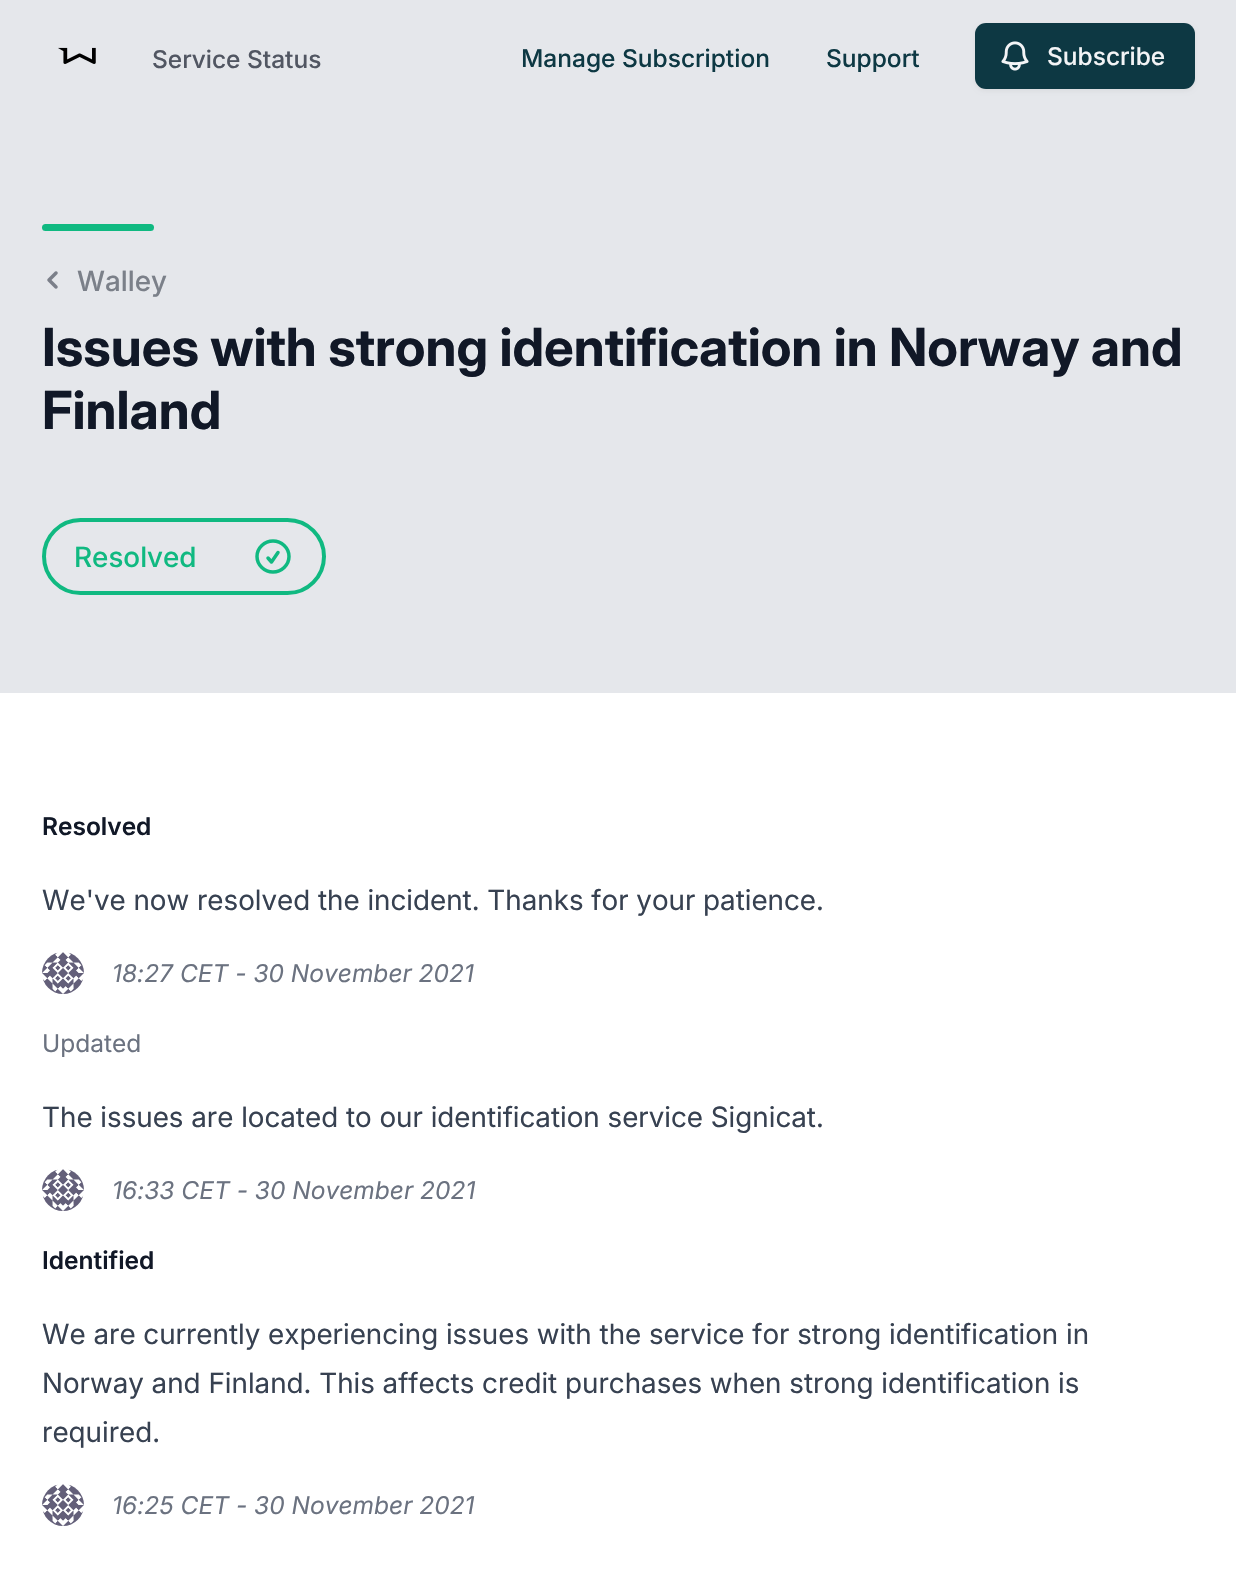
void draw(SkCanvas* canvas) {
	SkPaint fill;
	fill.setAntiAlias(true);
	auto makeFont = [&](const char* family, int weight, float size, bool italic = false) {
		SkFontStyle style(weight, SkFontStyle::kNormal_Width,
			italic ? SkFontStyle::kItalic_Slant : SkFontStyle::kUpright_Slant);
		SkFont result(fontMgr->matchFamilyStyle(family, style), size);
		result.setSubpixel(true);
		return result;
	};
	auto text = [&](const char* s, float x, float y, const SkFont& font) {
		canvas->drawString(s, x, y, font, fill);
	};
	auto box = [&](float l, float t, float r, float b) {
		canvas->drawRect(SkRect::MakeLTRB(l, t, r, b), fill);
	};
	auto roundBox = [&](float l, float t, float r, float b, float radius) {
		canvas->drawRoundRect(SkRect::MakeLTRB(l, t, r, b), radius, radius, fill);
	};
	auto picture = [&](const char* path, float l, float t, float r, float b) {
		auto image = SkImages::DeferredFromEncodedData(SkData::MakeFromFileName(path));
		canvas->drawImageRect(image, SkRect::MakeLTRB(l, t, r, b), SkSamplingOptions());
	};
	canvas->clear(0xFFFFFFFF);
	fill.setColor(0xFFE5E7EB);
	box(0, 0, 1236, 693);
	picture("image0.png", 58, 47, 96, 64);
	fill.setColor(0x0D000000);
	fill.setMaskFilter(SkMaskFilter::MakeBlur(kNormal_SkBlurStyle, 2));
	canvas->drawRoundRect(SkRect::MakeLTRB(975, 25, 1195, 91), 11, 11, fill);
	fill.setMaskFilter(nullptr);
	fill.setColor(0xFF0D3843);
	roundBox(975, 23, 1195, 89, 11);
	picture("image1.png", 1001, 41, 1029, 71);
	fill.setColor(0xFF10B981);
	roundBox(42, 224, 154, 231, 3.5f);
	picture("image2.png", 47, 271, 58, 289);
	fill.setStyle(SkPaint::kStroke_Style);
	fill.setStrokeWidth(4);
	canvas->drawRoundRect(SkRect::MakeLTRB(44, 520, 324, 593), 36.5f, 36.5f, fill);
	fill.setStrokeWidth(3.5f);
	fill.setStrokeCap(SkPaint::kRound_Cap);
	fill.setStrokeJoin(SkPaint::kRound_Join);
	canvas->drawPath(SkPathBuilder().moveTo(268, 558).lineTo(271.5f, 562).lineTo(278, 552.5f).moveTo(289, 556.5f).cubicTo(289, 565, 281.5f, 572, 273, 572).cubicTo(264.5f, 572, 257, 565, 257, 556.5f).cubicTo(257, 548, 264.5f, 541, 273, 541).cubicTo(281.5f, 541, 289, 548, 289, 556.5f).close().detach(), fill);
	picture("image3.png", 42, 952, 84, 994);
	picture("image4.png", 42, 1169, 84, 1211);
	picture("image4.png", 42, 1484, 84, 1526);
	auto font1 = makeFont("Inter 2", 500, 24.5f);
	fill.setStyle(SkPaint::kFill_Style);
	fill.setColor(0xFF515662);
	text("Service Status", 152, 68, font1);
	fill.setColor(0xFF0D3843);
	text("Manage Subscription", 521, 67, font1);
	text("Support", 826, 67, font1);
	fill.setColor(0xFFF3F4F6);
	text("Subscribe", 1047, 65, font1);
	auto font2 = makeFont("Inter", 500, 28);
	fill.setColor(0xFF7B8089);
	text("Walley", 77, 291, font2);
	auto font3 = makeFont("Inter", 700, 52.5f);
	fill.setColor(0xFF111827);
	text("Issues with strong identification in Norway and", 42, 366, font3);
	text("Finland", 42, 429, font3);
	fill.setColor(0xFF10B981);
	text("Resolved", 74, 567, font2);
	auto font4 = makeFont("Inter", 600, 24.5f);
	fill.setColor(0xFF111827);
	text("Resolved", 42, 835, font4);
	auto font5 = makeFont("Inter", 400, 28);
	fill.setColor(0xFF374151);
	text("We've now resolved the incident. Thanks for your patience.", 42, 910, font5);
	auto font6 = makeFont("Inter", 400, 24.5f, true);
	fill.setColor(0xFF6B7280);
	text("18:27 CET - 30 November 2021", 112, 982, font6);
	auto font7 = makeFont("Inter 2", 400, 24.5f);
	text("Updated", 42, 1052, font7);
	fill.setColor(0xFF374151);
	text("The issues are located to our identification service Signicat.", 42, 1127, font5);
	fill.setColor(0xFF6B7280);
	text("16:33 CET - 30 November 2021", 112, 1199, font6);
	fill.setColor(0xFF111827);
	text("Identified", 42, 1269, font4);
	fill.setColor(0xFF374151);
	text("We are currently experiencing issues with the service for strong identification in", 42, 1344, font5);
	text("Norway and Finland. This affects credit purchases when strong identification is", 42, 1393, font5);
	text("required.", 42, 1442, font5);
	fill.setColor(0xFF6B7280);
	text("16:25 CET - 30 November 2021", 112, 1514, font6);
}
